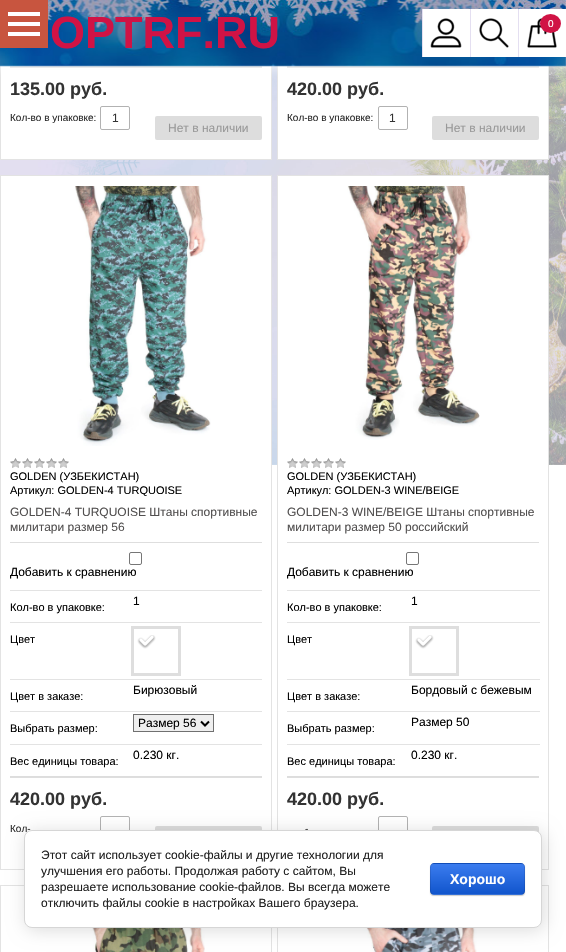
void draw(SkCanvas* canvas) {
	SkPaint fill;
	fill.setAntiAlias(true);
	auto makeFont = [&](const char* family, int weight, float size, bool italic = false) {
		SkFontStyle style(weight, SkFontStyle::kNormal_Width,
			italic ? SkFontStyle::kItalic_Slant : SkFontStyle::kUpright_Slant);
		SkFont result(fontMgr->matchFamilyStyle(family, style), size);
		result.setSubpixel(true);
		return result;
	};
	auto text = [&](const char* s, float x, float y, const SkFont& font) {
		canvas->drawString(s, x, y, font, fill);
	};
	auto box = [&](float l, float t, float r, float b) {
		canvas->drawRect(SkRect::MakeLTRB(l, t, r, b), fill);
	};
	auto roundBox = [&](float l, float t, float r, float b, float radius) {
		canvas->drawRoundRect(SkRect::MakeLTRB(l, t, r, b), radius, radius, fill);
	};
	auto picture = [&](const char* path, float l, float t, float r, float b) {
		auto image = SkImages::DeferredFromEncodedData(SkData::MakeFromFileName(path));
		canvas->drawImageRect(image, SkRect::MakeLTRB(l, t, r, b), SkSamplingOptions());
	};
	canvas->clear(0xFFFFFFFF);
	picture("image0.png", 0, 0, 566, 465);
	fill.setColor(0xFFFFFFFF);
	box(1, 65, 271, 159);
	fill.setStyle(SkPaint::kStroke_Style);
	fill.setStrokeWidth(1);
	fill.setColor(0xFFE3E3E3);
	canvas->drawRect(SkRect::MakeLTRB(0.5f, -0.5f, 271.5f, 159.5f), fill);
	fill.setStyle(SkPaint::kFill_Style);
	fill.setColor(0xFFDDDDDD);
	box(10, 66, 262, 67);
	fill.setColor(0xFFDEDEDE);
	box(10, 67, 262, 68);
	fill.setColor(0xFFFFFFFF);
	box(278, 65, 548, 159);
	fill.setStyle(SkPaint::kStroke_Style);
	fill.setColor(0xFFE3E3E3);
	canvas->drawRect(SkRect::MakeLTRB(277.5f, -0.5f, 548.5f, 159.5f), fill);
	fill.setStyle(SkPaint::kFill_Style);
	fill.setColor(0xFFDDDDDD);
	box(287, 66, 539, 67);
	fill.setColor(0xFFDEDEDE);
	box(287, 67, 539, 68);
	fill.setColor(0xFFFFFFFF);
	fill.setMaskFilter(SkMaskFilter::MakeBlur(kNormal_SkBlurStyle, 6));
	canvas->drawRect(SkRect::MakeLTRB(-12, -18, 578, 66), fill);
	fill.setMaskFilter(nullptr);
	picture("image1.png", 0, 0, 566, 67);
	fill.setColor(0xFFC8553F);
	box(0, 0, 48, 48);
	fill.setColor(0xFFFFFFFF);
	box(8, 22, 40, 26);
	box(8, 12, 40, 16);
	box(8, 32, 40, 36);
	box(423, 9, 470, 57);
	fill.setColor(0xFFE4DFF1);
	box(422, 9, 423, 57);
	picture("image2.png", 430, 18, 462, 48);
	fill.setColor(0xFFFFFFFF);
	box(471, 9, 518, 57);
	fill.setColor(0xFFE4DFF1);
	box(470, 9, 471, 57);
	picture("image3.png", 479, 18, 509, 48);
	fill.setColor(0xFFFFFFFF);
	box(519, 9, 566, 57);
	fill.setColor(0xFFE4DFF1);
	box(518, 9, 519, 57);
	picture("image4.png", 527, 18, 557, 48);
	fill.setColor(0xFFD01345);
	canvas->drawOval(SkRect::MakeLTRB(540, 14, 561, 33), fill);
	fill.setStyle(SkPaint::kStroke_Style);
	fill.setColor(0xFFB2B2B2);
	canvas->drawRoundRect(SkRect::MakeLTRB(100.5f, 106.5f, 129.5f, 129.5f), 1.5f, 1.5f, fill);
	fill.setStyle(SkPaint::kFill_Style);
	fill.setColor(0xFFDDDDDD);
	roundBox(155, 116, 262, 140, 2);
	fill.setStyle(SkPaint::kStroke_Style);
	fill.setColor(0xFFB2B2B2);
	canvas->drawRoundRect(SkRect::MakeLTRB(378.5f, 106.5f, 407.5f, 129.5f), 1.5f, 1.5f, fill);
	fill.setStyle(SkPaint::kFill_Style);
	fill.setColor(0xFFDDDDDD);
	roundBox(432, 116, 539, 140, 2);
	fill.setColor(0xFFFFFFFF);
	box(1, 176, 271, 465);
	fill.setStyle(SkPaint::kStroke_Style);
	fill.setColor(0xFFE3E3E3);
	canvas->drawRect(SkRect::MakeLTRB(0.5f, 175.5f, 271.5f, 869.5f), fill);
	picture("image5.png", 75, 186, 211, 446);
	picture("image6.png", 10, 458, 69, 468);
	fill.setStyle(SkPaint::kFill_Style);
	fill.setColor(0xFFDEDEDE);
	box(10, 542, 262, 543);
	fill.setStyle(SkPaint::kStroke_Style);
	fill.setColor(0xFF767676);
	canvas->drawRoundRect(SkRect::MakeLTRB(129.5f, 552.5f, 141.5f, 564.5f), 1.5f, 1.5f, fill);
	fill.setStyle(SkPaint::kFill_Style);
	fill.setColor(0xFFDDDDDD);
	box(10, 776, 262, 777);
	fill.setColor(0xFFE3E3E3);
	box(10, 590, 262, 591);
	box(10, 622, 262, 623);
	fill.setStyle(SkPaint::kStroke_Style);
	fill.setColor(0xFFDEDEDE);
	canvas->drawRect(SkRect::MakeLTRB(133.5f, 628.5f, 178.5f, 673.5f), fill);
	picture("image7.png", 137, 635, 156, 649);
	fill.setStrokeWidth(2);
	canvas->drawRect(SkRect::MakeLTRB(132, 627, 180, 675), fill);
	fill.setStyle(SkPaint::kFill_Style);
	fill.setColor(0xFFE3E3E3);
	box(10, 679, 262, 680);
	box(10, 711, 262, 712);
	fill.setColor(0xFFEFEFEF);
	canvas->drawRect(SkRect::MakeLTRB(133.5f, 714.5f, 213.5f, 731.5f), fill);
	fill.setStyle(SkPaint::kStroke_Style);
	fill.setStrokeWidth(1);
	fill.setColor(0xFF707070);
	canvas->drawRect(SkRect::MakeLTRB(133.5f, 714.5f, 213.5f, 731.5f), fill);
	fill.setStrokeWidth(2);
	fill.setColor(0xFF000000);
	canvas->drawPath(SkPathBuilder().moveTo(201, 721.5f).lineTo(205, 725.5f).lineTo(209, 721.5f).detach(), fill);
	fill.setStyle(SkPaint::kFill_Style);
	fill.setColor(0xFFE3E3E3);
	box(10, 744, 262, 745);
	fill.setColor(0xFFDEDEDE);
	box(10, 777, 262, 778);
	fill.setStyle(SkPaint::kStroke_Style);
	fill.setStrokeWidth(1);
	fill.setColor(0xFFB2B2B2);
	canvas->drawRoundRect(SkRect::MakeLTRB(100.5f, 816.5f, 129.5f, 839.5f), 1.5f, 1.5f, fill);
	fill.setStyle(SkPaint::kFill_Style);
	fill.setColor(0xFFDDDDDD);
	roundBox(155, 826, 262, 850, 2);
	fill.setColor(0xFFFFFFFF);
	box(278, 176, 548, 465);
	fill.setStyle(SkPaint::kStroke_Style);
	fill.setColor(0xFFE3E3E3);
	canvas->drawRect(SkRect::MakeLTRB(277.5f, 175.5f, 548.5f, 869.5f), fill);
	picture("image8.png", 347, 186, 480, 440);
	picture("image6.png", 287, 458, 346, 468);
	fill.setStyle(SkPaint::kFill_Style);
	fill.setColor(0xFFDEDEDE);
	box(287, 542, 539, 543);
	fill.setStyle(SkPaint::kStroke_Style);
	fill.setColor(0xFF767676);
	canvas->drawRoundRect(SkRect::MakeLTRB(406.5f, 552.5f, 418.5f, 564.5f), 1.5f, 1.5f, fill);
	fill.setStyle(SkPaint::kFill_Style);
	fill.setColor(0xFFDDDDDD);
	box(287, 776, 539, 777);
	fill.setColor(0xFFE3E3E3);
	box(287, 590, 540, 591);
	box(287, 622, 540, 623);
	fill.setStyle(SkPaint::kStroke_Style);
	fill.setColor(0xFFDEDEDE);
	canvas->drawRect(SkRect::MakeLTRB(411.5f, 628.5f, 456.5f, 673.5f), fill);
	picture("image7.png", 415, 635, 434, 649);
	fill.setStrokeWidth(2);
	canvas->drawRect(SkRect::MakeLTRB(410, 627, 458, 675), fill);
	fill.setStyle(SkPaint::kFill_Style);
	fill.setColor(0xFFE3E3E3);
	box(287, 679, 540, 680);
	box(287, 711, 540, 712);
	box(287, 744, 540, 745);
	fill.setColor(0xFFDEDEDE);
	box(287, 777, 539, 778);
	fill.setStyle(SkPaint::kStroke_Style);
	fill.setStrokeWidth(1);
	fill.setColor(0xFFB2B2B2);
	canvas->drawRoundRect(SkRect::MakeLTRB(378.5f, 816.5f, 407.5f, 839.5f), 1.5f, 1.5f, fill);
	fill.setStyle(SkPaint::kFill_Style);
	fill.setColor(0xFFDDDDDD);
	roundBox(432, 826, 539, 850, 2);
	fill.setStyle(SkPaint::kStroke_Style);
	fill.setColor(0xFFE3E3E3);
	canvas->drawRect(SkRect::MakeLTRB(0.5f, 885.5f, 271.5f, 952.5f), fill);
	picture("image9.png", 83, 928, 205, 952);
	canvas->drawRect(SkRect::MakeLTRB(277.5f, 885.5f, 548.5f, 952.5f), fill);
	picture("image10.png", 351, 928, 477, 952);
	fill.setStyle(SkPaint::kFill_Style);
	fill.setColor(0x24000000);
	fill.setMaskFilter(SkMaskFilter::MakeBlur(kNormal_SkBlurStyle, 9));
	canvas->drawRoundRect(SkRect::MakeLTRB(26, 832, 544, 930), 8, 8, fill);
	fill.setMaskFilter(nullptr);
	auto font1 = makeFont("Liberation Sans", 700, 45);
	fill.setColor(0xFFD01345);
	text("OPTRF.RU", 50, 48, font1);
	auto font2 = makeFont("Liberation Sans", 400, 10);
	fill.setColor(0xFFFFFFFF);
	text("0", 548, 27, font2);
	auto font3 = makeFont("Liberation Sans", 700, 18);
	fill.setColor(0xFF333333);
	text("135.00 руб.", 10, 95, font3);
	fill.setColor(0xFF2A2A2A);
	text("Кол-во в упаковке:", 10, 121, font2);
	auto font4 = makeFont("Liberation Sans", 400, 12);
	fill.setColor(0xFF333333);
	text("1", 112, 122, font4);
	fill.setColor(0xFF999999);
	text("Нет в наличии", 168, 132, font4);
	fill.setColor(0xFF333333);
	text("420.00 руб.", 287, 95, font3);
	fill.setColor(0xFF2A2A2A);
	text("Кол-во в упаковке:", 287, 121, font2);
	fill.setColor(0xFF333333);
	text("1", 389, 122, font4);
	fill.setColor(0xFF999999);
	text("Нет в наличии", 445, 132, font4);
	auto font5 = makeFont("Liberation Sans", 400, 11);
	fill.setColor(0xFF000000);
	text("GOLDEN (УЗБЕКИСТАН)", 10, 480, font5);
	text("Артикул: GOLDEN-4 TURQUOISE", 10, 494, font5);
	fill.setColor(0xFF525050);
	text("GOLDEN-4 TURQUOISE Штаны спортивные", 10, 516, font4);
	text("милитари размер 56", 10, 531, font4);
	fill.setColor(0xFF000000);
	text("Добавить к сравнению", 10, 576, font4);
	text("1", 133, 605, font4);
	text("Кол-во в упаковке:", 10, 611, font5);
	text("Цвет", 10, 643, font5);
	text("Цвет в заказе:", 10, 700, font5);
	text("Бирюзовый", 133, 694, font4);
	text("Выбрать размер:", 10, 732, font5);
	text("Размер 56", 138, 727, font4);
	text("0.230 кг.", 133, 759, font4);
	text("Вес единицы товара:", 10, 765, font5);
	fill.setColor(0xFF333333);
	text("420.00 руб.", 10, 805, font3);
	fill.setColor(0xFF2A2A2A);
	text("Кол-", 10, 832, font2);
	fill.setColor(0xFF000000);
	text("GOLDEN (УЗБЕКИСТАН)", 287, 480, font5);
	text("Артикул: GOLDEN-3 WINE/BEIGE", 287, 494, font5);
	fill.setColor(0xFF525050);
	text("GOLDEN-3 WINE/BEIGE Штаны спортивные", 287, 516, font4);
	text("милитари размер 50 российский", 287, 531, font4);
	fill.setColor(0xFF000000);
	text("Добавить к сравнению", 287, 576, font4);
	text("1", 411, 605, font4);
	text("Кол-во в упаковке:", 287, 611, font5);
	text("Цвет", 287, 643, font5);
	text("Цвет в заказе:", 287, 700, font5);
	text("Бордовый с бежевым", 411, 694, font4);
	text("Выбрать размер:", 287, 732, font5);
	text("Размер 50", 411, 726, font4);
	text("0.230 кг.", 411, 759, font4);
	text("Вес единицы товара:", 287, 765, font5);
	fill.setColor(0xFF333333);
	text("420.00 руб.", 287, 805, font3);
	fill.setColor(0xFF2A2A2A);
	text("-", 305, 832, font2);
	fill.setColor(0xFFFFFFFF);
	canvas->drawRoundRect(SkRect::MakeLTRB(24.5f, 830.5f, 541.5f, 927.5f), 7.5f, 7.5f, fill);
	fill.setStyle(SkPaint::kStroke_Style);
	fill.setColor(0xFFD6D6D6);
	canvas->drawRoundRect(SkRect::MakeLTRB(24.5f, 830.5f, 541.5f, 927.5f), 7.5f, 7.5f, fill);
	fill.setStyle(SkPaint::kFill_Style);
	fill.setColor(0xFF212121);
	text("Этот сайт использует cookie-файлы и другие технологии для", 41, 859, font4);
	text("улучшения его работы. Продолжая работу с сайтом, Вы", 41, 875, font4);
	text("разрешаете использование cookie-файлов. Вы всегда можете", 41, 891, font4);
	text("отключить файлы cookie в настройках Вашего браузера.", 41, 907, font4);
	fill.setColor(0x33000000);
	fill.setMaskFilter(SkMaskFilter::MakeBlur(kNormal_SkBlurStyle, 0.5f));
	canvas->drawRoundRect(SkRect::MakeLTRB(430, 864, 525, 896), 4, 4, fill);
	fill.setMaskFilter(nullptr);
	canvas->save();
	canvas->clipPath(SkPathBuilder().moveTo(434, 863).lineTo(521, 863).cubicTo(523, 863, 525, 865, 525, 867).lineTo(525, 891).cubicTo(525, 893, 523, 895, 521, 895).lineTo(434, 895).cubicTo(432, 895, 430, 893, 430, 891).lineTo(430, 867).cubicTo(430, 865, 432, 863, 434, 863).close().detach(), true);
	{
		const SkColor colors[] = {0xFF3B7CEF, 0xFF1155CC};
		const float stops[] = {0, 1};
		const SkPoint ends[] = {{478, 834}, {478, 864}};
		fill.setShader(SkGradientShader::MakeLinear(ends, colors, stops, 2, SkTileMode::kClamp));
		fill.setAlpha(255);
	}
	box(430, 863, 525, 864);
	{
		const SkColor colors[] = {0xFF3B7CEF, 0xFF1155CC};
		const float stops[] = {0, 1};
		const SkPoint ends[] = {{478, 864}, {478, 894}};
		fill.setShader(SkGradientShader::MakeLinear(ends, colors, stops, 2, SkTileMode::kClamp));
		fill.setAlpha(255);
	}
	box(430, 864, 525, 894);
	{
		const SkColor colors[] = {0xFF3B7CEF, 0xFF1155CC};
		const float stops[] = {0, 1};
		const SkPoint ends[] = {{478, 894}, {478, 924}};
		fill.setShader(SkGradientShader::MakeLinear(ends, colors, stops, 2, SkTileMode::kClamp));
		fill.setAlpha(255);
	}
	box(430, 894, 525, 895);
	canvas->restore();
	fill.setStyle(SkPaint::kStroke_Style);
	fill.setShader(nullptr);
	fill.setColor(0x1A000000);
	canvas->drawRoundRect(SkRect::MakeLTRB(430.5f, 863.5f, 524.5f, 894.5f), 3.5f, 3.5f, fill);
	auto font6 = makeFont("Liberation Sans", 700, 14);
	fill.setStyle(SkPaint::kFill_Style);
	fill.setColor(0xFFFFFFFF);
	text("Хорошо", 450, 884, font6);
}
